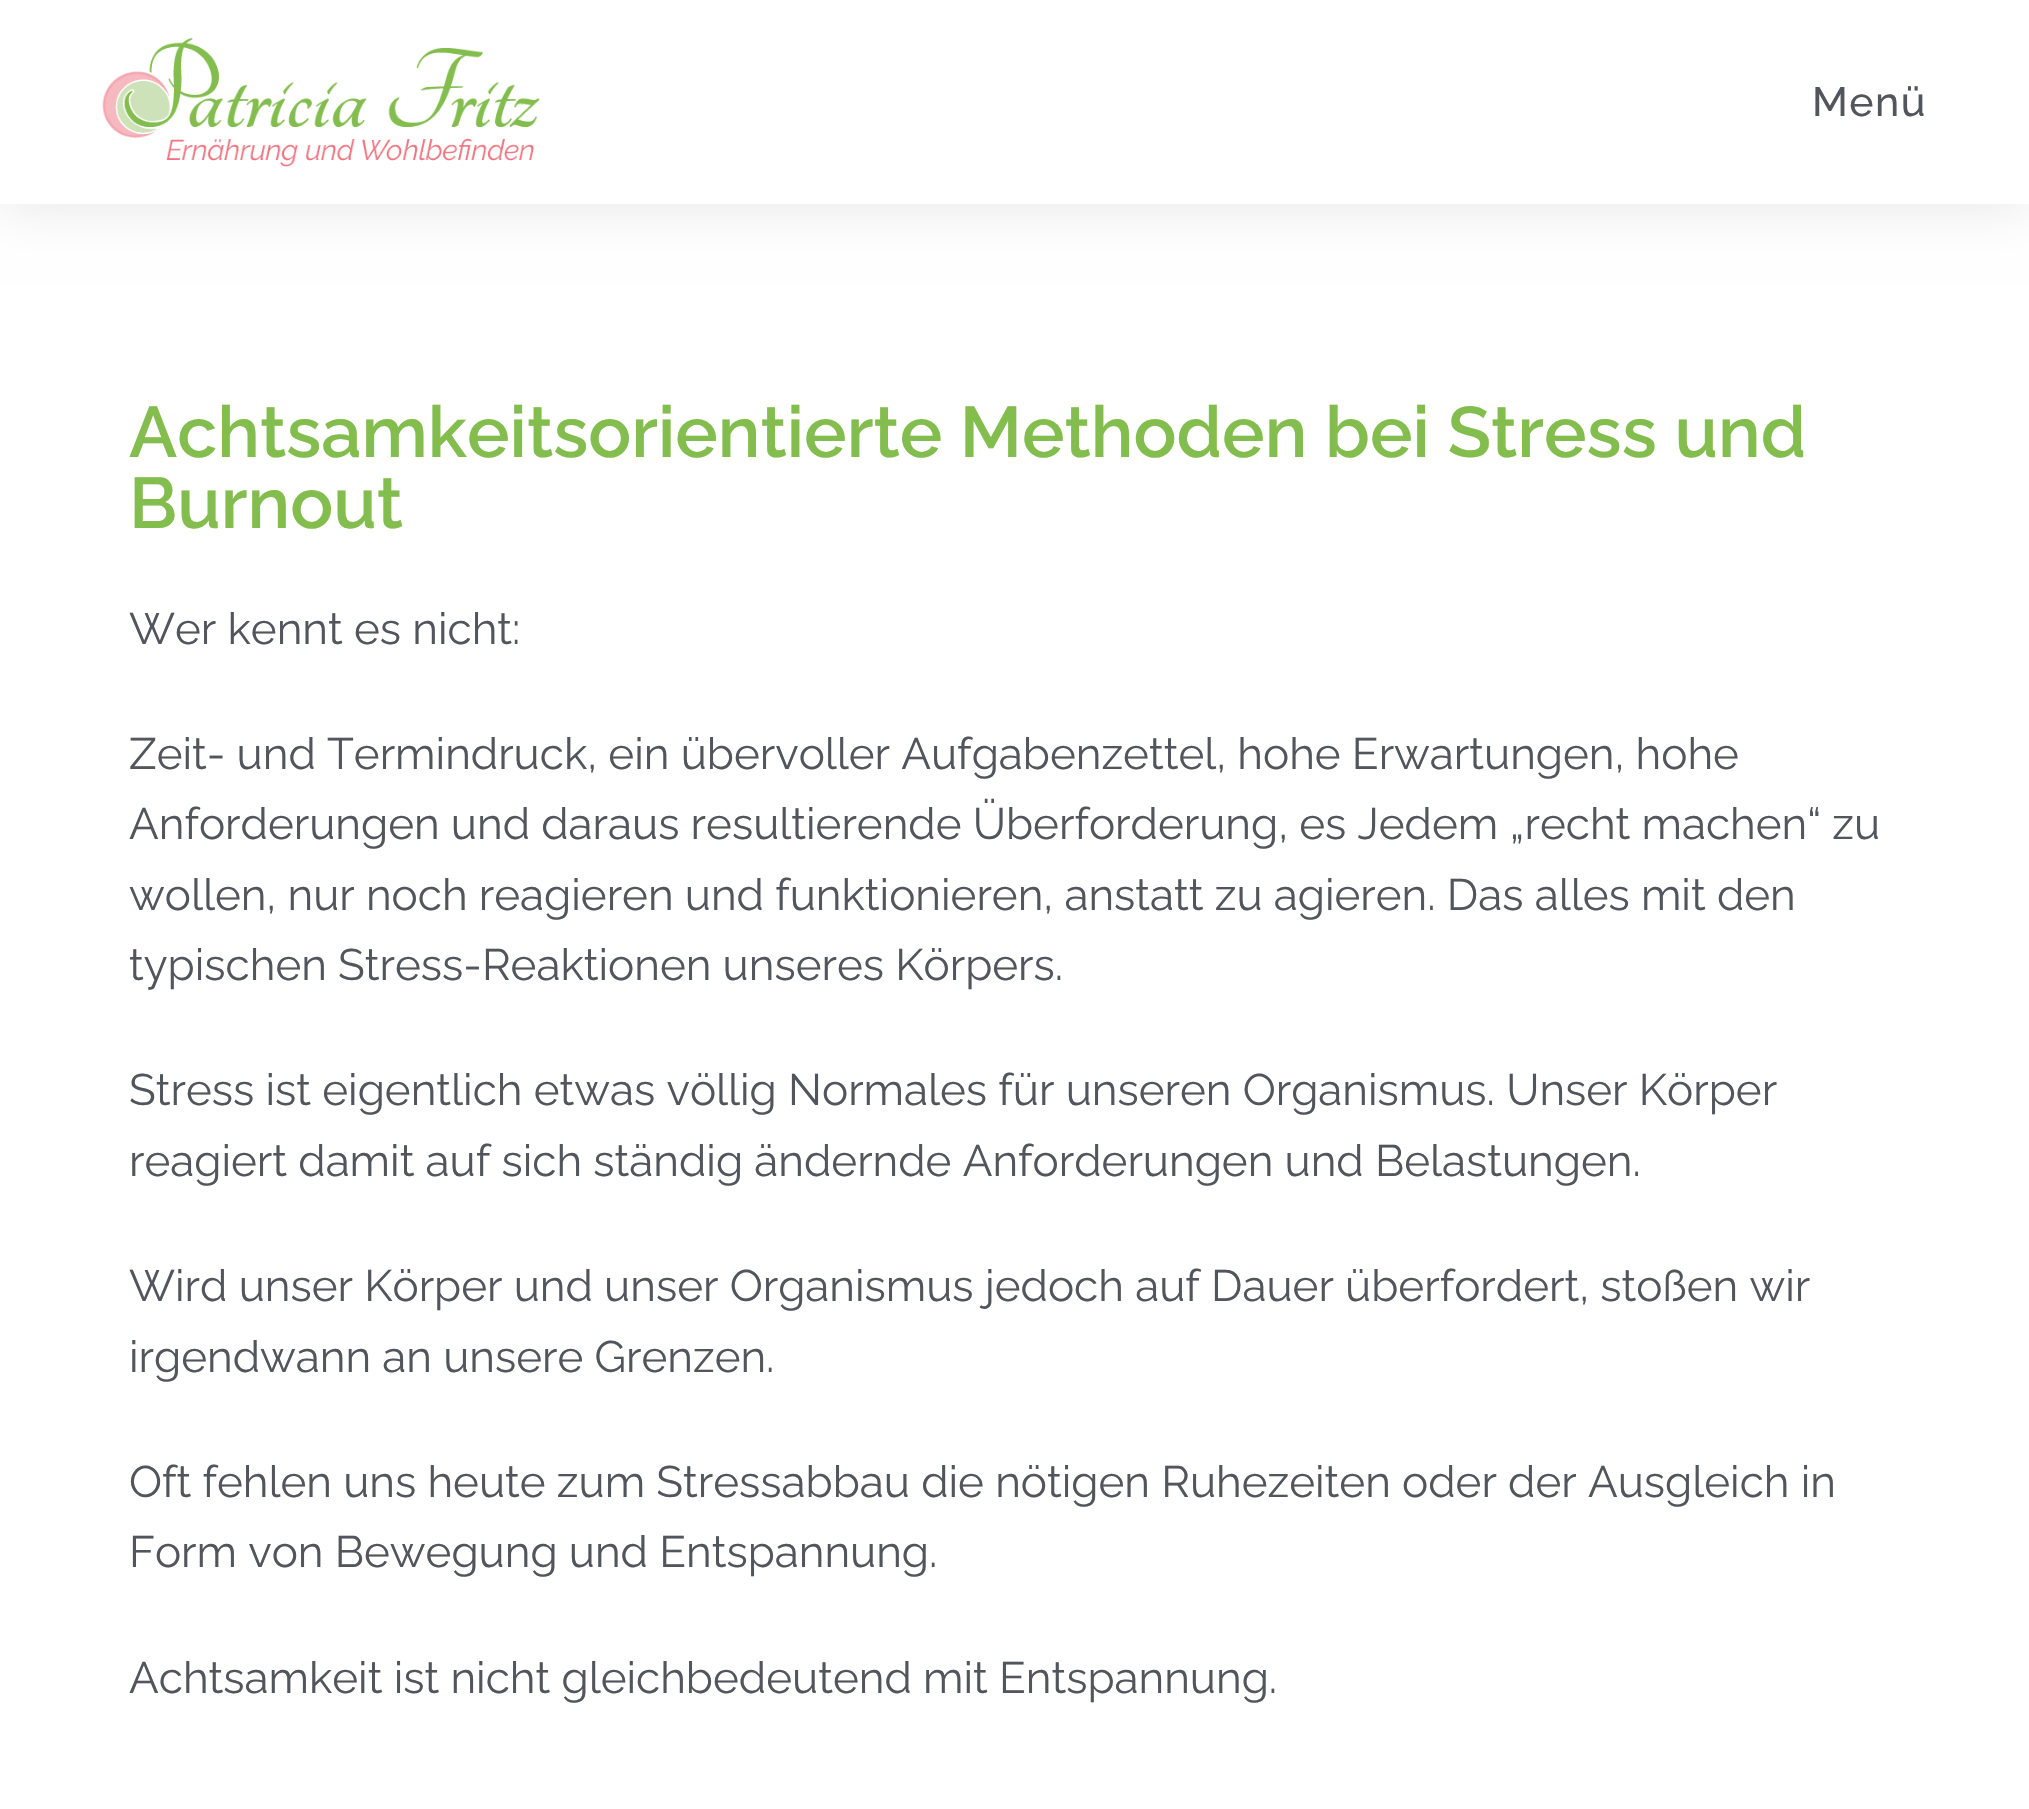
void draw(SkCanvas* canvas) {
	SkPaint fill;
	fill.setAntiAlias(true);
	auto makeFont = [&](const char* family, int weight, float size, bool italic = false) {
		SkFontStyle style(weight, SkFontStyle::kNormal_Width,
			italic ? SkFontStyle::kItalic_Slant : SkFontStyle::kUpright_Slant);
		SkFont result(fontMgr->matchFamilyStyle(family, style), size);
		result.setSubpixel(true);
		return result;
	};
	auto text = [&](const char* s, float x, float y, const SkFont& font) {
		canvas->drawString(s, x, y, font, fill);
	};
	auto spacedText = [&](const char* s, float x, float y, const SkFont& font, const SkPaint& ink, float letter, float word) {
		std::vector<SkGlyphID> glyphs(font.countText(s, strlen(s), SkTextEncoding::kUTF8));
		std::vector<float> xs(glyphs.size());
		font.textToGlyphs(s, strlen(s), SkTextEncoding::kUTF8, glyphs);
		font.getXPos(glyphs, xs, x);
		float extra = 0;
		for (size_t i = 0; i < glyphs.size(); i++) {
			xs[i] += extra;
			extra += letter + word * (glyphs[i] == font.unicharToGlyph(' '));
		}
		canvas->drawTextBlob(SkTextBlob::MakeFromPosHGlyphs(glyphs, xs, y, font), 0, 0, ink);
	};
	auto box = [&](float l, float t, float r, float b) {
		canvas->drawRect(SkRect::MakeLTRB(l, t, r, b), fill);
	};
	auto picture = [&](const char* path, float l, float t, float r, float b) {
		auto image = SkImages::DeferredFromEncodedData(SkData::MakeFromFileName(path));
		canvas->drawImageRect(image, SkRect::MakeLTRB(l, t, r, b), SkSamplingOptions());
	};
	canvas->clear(0xFFFFFFFF);
	fill.setColor(0x1A000000);
	fill.setMaskFilter(SkMaskFilter::MakeBlur(kNormal_SkBlurStyle, 27.5f));
	canvas->drawRect(SkRect::MakeLTRB(0, 0, 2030, 204), fill);
	fill.setMaskFilter(nullptr);
	fill.setColor(0xFFFFFFFF);
	box(0, 0, 2029, 204);
	picture("image0.png", 102, 37, 540, 167);
	auto font1 = makeFont("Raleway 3", 100, 41);
	fill.setColor(0xFF52555C);
	spacedText("Menü", 1812, 116, font1, fill, 1.5f, 0);
	auto font2 = makeFont("Raleway", 100, 71.5f);
	fill.setColor(0xFF82BD4E);
	text("Achtsamkeitsorientierte Methoden bei Stress und", 129, 457, font2);
	text("Burnout", 129, 528, font2);
	auto font3 = makeFont("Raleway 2", 100, 44);
	fill.setColor(0xFF52555C);
	text("Wer kennt es nicht:", 129, 644, font3);
	text("Zeit- und Termindruck, ein übervoller Aufgabenzettel, hohe Erwartungen, hohe", 129, 769, font3);
	text("Anforderungen und daraus resultierende Überforderung, es Jedem „recht machen“ zu", 129, 839, font3);
	text("wollen, nur noch reagieren und funktionieren, anstatt zu agieren. Das alles mit den", 129, 910, font3);
	text("typischen Stress-Reaktionen unseres Körpers.", 129, 980, font3);
	text("Stress ist eigentlich etwas völlig Normales für unseren Organismus. Unser Körper", 129, 1105, font3);
	text("reagiert damit auf sich ständig ändernde Anforderungen und Belastungen.", 129, 1176, font3);
	text("Wird unser Körper und unser Organismus jedoch auf Dauer überfordert, stoßen wir", 129, 1301, font3);
	text("irgendwann an unsere Grenzen.", 129, 1372, font3);
	text("Oft fehlen uns heute zum Stressabbau die nötigen Ruhezeiten oder der Ausgleich in", 129, 1497, font3);
	text("Form von Bewegung und Entspannung.", 129, 1567, font3);
	text("Achtsamkeit ist nicht gleichbedeutend mit Entspannung.", 129, 1693, font3);
}
